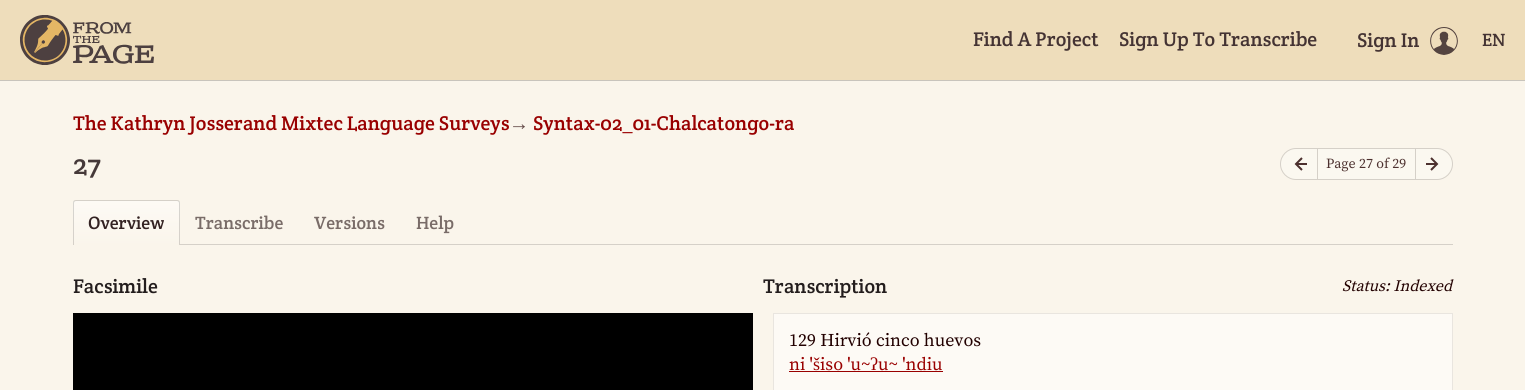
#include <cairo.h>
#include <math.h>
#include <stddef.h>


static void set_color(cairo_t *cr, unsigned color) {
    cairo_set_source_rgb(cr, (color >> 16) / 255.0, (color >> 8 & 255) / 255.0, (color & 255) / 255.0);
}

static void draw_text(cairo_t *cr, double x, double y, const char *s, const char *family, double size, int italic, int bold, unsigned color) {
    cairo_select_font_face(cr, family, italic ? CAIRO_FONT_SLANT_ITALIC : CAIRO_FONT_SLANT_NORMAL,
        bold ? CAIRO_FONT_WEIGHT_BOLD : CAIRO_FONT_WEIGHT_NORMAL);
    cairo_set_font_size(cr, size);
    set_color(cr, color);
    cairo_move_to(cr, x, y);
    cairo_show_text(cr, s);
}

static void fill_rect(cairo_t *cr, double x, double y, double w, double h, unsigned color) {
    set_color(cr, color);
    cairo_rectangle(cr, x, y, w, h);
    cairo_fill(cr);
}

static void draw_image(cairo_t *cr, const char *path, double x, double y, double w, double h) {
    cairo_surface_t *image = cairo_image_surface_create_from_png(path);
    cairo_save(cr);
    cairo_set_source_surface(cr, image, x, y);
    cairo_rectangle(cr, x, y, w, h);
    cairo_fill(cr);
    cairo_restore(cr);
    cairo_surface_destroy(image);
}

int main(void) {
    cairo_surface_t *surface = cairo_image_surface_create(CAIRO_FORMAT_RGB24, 1525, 390);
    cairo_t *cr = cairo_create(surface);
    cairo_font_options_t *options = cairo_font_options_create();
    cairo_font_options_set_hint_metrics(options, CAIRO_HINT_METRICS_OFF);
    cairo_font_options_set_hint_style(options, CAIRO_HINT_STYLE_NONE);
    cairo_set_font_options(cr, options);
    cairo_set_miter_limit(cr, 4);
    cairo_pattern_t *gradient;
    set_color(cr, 0xFAF5EB);
    cairo_paint(cr);
    fill_rect(cr, 0, 80, 1525, 1, 0xC8C4BC);
    fill_rect(cr, 0, 0, 1525, 80, 0xEEDDBB);
    draw_image(cr, "assets/img1.png", 20, 15, 134, 50);
    draw_text(cr, 973, 46, "Find A Project", "Crete Round", 20, 0, 0, 0x443333);
    draw_text(cr, 1119, 46, "Sign Up To Transcribe", "Crete Round", 20, 0, 0, 0x443333);
    draw_text(cr, 1357, 47, "Sign In", "Crete Round", 20, 0, 0, 0x443333);
    draw_image(cr, "assets/img2.png", 1430, 27, 28, 28);
    draw_text(cr, 1482, 46, "EN", "Crete Round", 18, 0, 0, 0x443333);
    draw_text(cr, 73, 130, "The Kathryn Josserand Mixtec Language Surveys", "Crete Round", 20, 0, 0, 0x990000);
    draw_text(cr, 509, 130, "→", "Liberation Serif", 20, 0, 0, 0x634A47);
    draw_text(cr, 533, 130, "Syntax-02_01-Chalcatongo-ra", "Crete Round", 20, 0, 0, 0x990000);
    draw_text(cr, 73, 174, "27", "Crete Round", 28, 0, 0, 0x453939);
    set_color(cr, 0xFBF8F0);
    cairo_new_path(cr);
    cairo_move_to(cr, 1296, 148.5);
    cairo_line_to(cr, 1317.5, 148.5);
    cairo_line_to(cr, 1317.5, 179.5);
    cairo_line_to(cr, 1296, 179.5);
    cairo_curve_to(cr, 1287.5, 179.5, 1280.5, 172.5, 1280.5, 164);
    cairo_curve_to(cr, 1280.5, 155.5, 1287.5, 148.5, 1296, 148.5);
    cairo_close_path(cr);
    cairo_fill_preserve(cr);
    set_color(cr, 0xD5D0C8);
    cairo_set_line_width(cr, 1);
    cairo_stroke(cr);
    draw_image(cr, "assets/img3.png", 1294, 157, 13, 14);
    fill_rect(cr, 1318, 149, 97, 30, 0xFBF8F0);
    fill_rect(cr, 1318, 148, 97, 1, 0xD5D0C8);
    fill_rect(cr, 1318, 179, 97, 1, 0xD5D0C8);
    draw_text(cr, 1326, 168, "Page 27 of 29", "Source Serif Pro", 14, 0, 0, 0x4D312F);
    set_color(cr, 0xFBF8F0);
    cairo_new_path(cr);
    cairo_move_to(cr, 1415.5, 148.5);
    cairo_line_to(cr, 1437, 148.5);
    cairo_curve_to(cr, 1445.5, 148.5, 1452.5, 155.5, 1452.5, 164);
    cairo_curve_to(cr, 1452.5, 172.5, 1445.5, 179.5, 1437, 179.5);
    cairo_line_to(cr, 1415.5, 179.5);
    cairo_close_path(cr);
    cairo_fill_preserve(cr);
    set_color(cr, 0xD5D0C8);
    cairo_stroke(cr);
    draw_image(cr, "assets/img4.png", 1426, 157, 13, 14);
    fill_rect(cr, 180, 244, 1273, 1, 0xD5D0C8);
    cairo_save(cr);
    cairo_new_path(cr);
    cairo_move_to(cr, 76, 200);
    cairo_line_to(cr, 177, 200);
    cairo_curve_to(cr, 178.5, 200, 180, 201.5, 180, 203);
    cairo_line_to(cr, 180, 245);
    cairo_line_to(cr, 73, 245);
    cairo_line_to(cr, 73, 203);
    cairo_curve_to(cr, 73, 201.5, 74.5, 200, 76, 200);
    cairo_close_path(cr);
    cairo_clip(cr);
    gradient = cairo_pattern_create_linear(127, 201, 127, 245);
    cairo_pattern_add_color_stop_rgba(gradient, 0, 0.992, 0.98, 0.961, 1);
    cairo_pattern_add_color_stop_rgba(gradient, 1, 0.98, 0.961, 0.922, 1);
    cairo_set_source(cr, gradient);
    cairo_pattern_destroy(gradient);
    cairo_rectangle(cr, 73, 201, 107, 44);
    cairo_fill(cr);
    cairo_restore(cr);
    cairo_set_source_rgba(cr, 0, 0, 0, 0.15);
    cairo_set_fill_rule(cr, CAIRO_FILL_RULE_EVEN_ODD);
    cairo_new_path(cr);
    cairo_move_to(cr, 76, 200);
    cairo_line_to(cr, 177, 200);
    cairo_curve_to(cr, 179, 200, 180, 201, 180, 203);
    cairo_line_to(cr, 180, 245);
    cairo_line_to(cr, 73, 245);
    cairo_line_to(cr, 73, 203);
    cairo_curve_to(cr, 73, 201, 74, 200, 76, 200);
    cairo_close_path(cr);
    cairo_move_to(cr, 76, 201);
    cairo_line_to(cr, 177, 201);
    cairo_curve_to(cr, 178, 201, 179, 202, 179, 203);
    cairo_line_to(cr, 179, 245);
    cairo_line_to(cr, 74, 245);
    cairo_line_to(cr, 74, 203);
    cairo_curve_to(cr, 74, 202, 75, 201, 76, 201);
    cairo_close_path(cr);
    cairo_fill(cr);
    draw_text(cr, 88, 229, "Overview", "Crete Round", 18, 0, 0, 0x332222);
    draw_text(cr, 195, 229, "Transcribe", "Crete Round", 18, 0, 0, 0x796C68);
    draw_text(cr, 314, 229, "Versions", "Crete Round", 18, 0, 0, 0x796C68);
    draw_text(cr, 416, 229, "Help", "Crete Round", 18, 0, 0, 0x796C68);
    draw_text(cr, 73, 293, "Facsimile", "Crete Round", 20, 0, 0, 0x231D1D);
    draw_text(cr, 763, 293, "Transcription", "Crete Round", 20, 0, 0, 0x231D1D);
    draw_text(cr, 1342, 291, "Status: Indexed", "Source Serif Pro", 16, 1, 0, 0x220000);
    fill_rect(cr, 73, 313, 680, 77, 0x000000);
    set_color(cr, 0xFDFAF5);
    cairo_rectangle(cr, 773.5, 313.5, 679, 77);
    cairo_fill_preserve(cr);
    set_color(cr, 0xE9E5DF);
    cairo_stroke(cr);
    draw_text(cr, 789, 346, "129 Hirvió cinco huevos", "Source Serif Pro", 18, 0, 0, 0x220000);
    draw_text(cr, 789, 370, "ni '", "Source Serif Pro", 18, 0, 0, 0x990000);
    draw_text(cr, 813, 370, "š", "Liberation Serif", 18, 0, 0, 0x990000);
    fill_rect(cr, 789, 371, 154, 1, 0x990000);
    draw_text(cr, 820, 370, "iso 'u~", "Source Serif Pro", 18, 0, 0, 0x990000);
    draw_text(cr, 870, 370, "ʔ", "Liberation Serif", 18, 0, 0, 0x990000);
    draw_text(cr, 878, 370, "u~ 'ndiu", "Source Serif Pro", 18, 0, 0, 0x990000);
    cairo_surface_write_to_png(surface, "output.png");
    cairo_font_options_destroy(options);
    cairo_destroy(cr);
    cairo_surface_destroy(surface);
    return 0;
}
